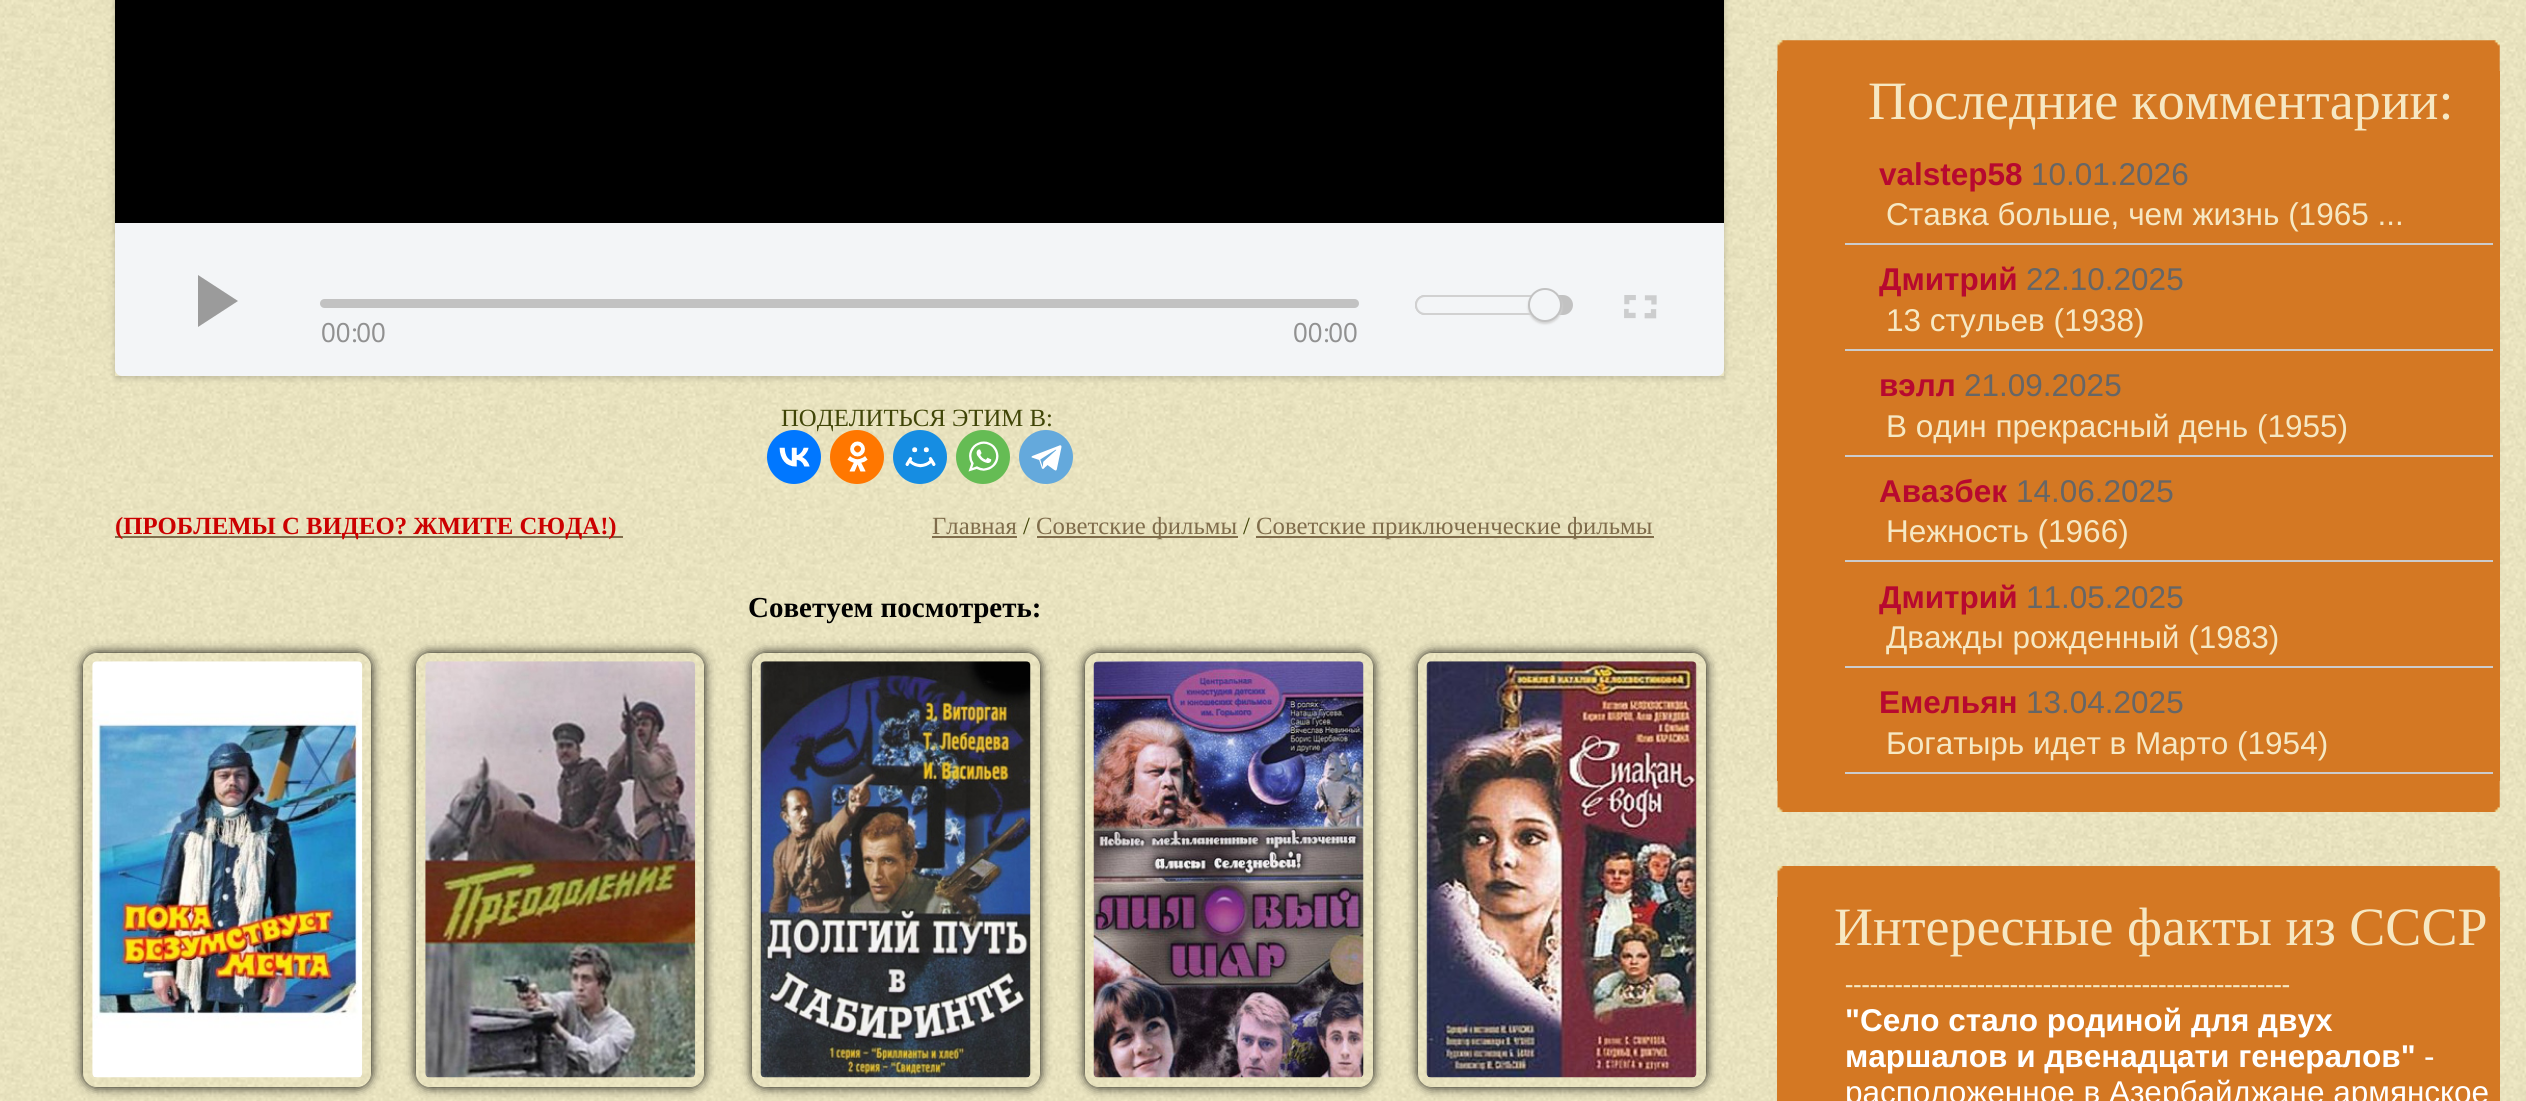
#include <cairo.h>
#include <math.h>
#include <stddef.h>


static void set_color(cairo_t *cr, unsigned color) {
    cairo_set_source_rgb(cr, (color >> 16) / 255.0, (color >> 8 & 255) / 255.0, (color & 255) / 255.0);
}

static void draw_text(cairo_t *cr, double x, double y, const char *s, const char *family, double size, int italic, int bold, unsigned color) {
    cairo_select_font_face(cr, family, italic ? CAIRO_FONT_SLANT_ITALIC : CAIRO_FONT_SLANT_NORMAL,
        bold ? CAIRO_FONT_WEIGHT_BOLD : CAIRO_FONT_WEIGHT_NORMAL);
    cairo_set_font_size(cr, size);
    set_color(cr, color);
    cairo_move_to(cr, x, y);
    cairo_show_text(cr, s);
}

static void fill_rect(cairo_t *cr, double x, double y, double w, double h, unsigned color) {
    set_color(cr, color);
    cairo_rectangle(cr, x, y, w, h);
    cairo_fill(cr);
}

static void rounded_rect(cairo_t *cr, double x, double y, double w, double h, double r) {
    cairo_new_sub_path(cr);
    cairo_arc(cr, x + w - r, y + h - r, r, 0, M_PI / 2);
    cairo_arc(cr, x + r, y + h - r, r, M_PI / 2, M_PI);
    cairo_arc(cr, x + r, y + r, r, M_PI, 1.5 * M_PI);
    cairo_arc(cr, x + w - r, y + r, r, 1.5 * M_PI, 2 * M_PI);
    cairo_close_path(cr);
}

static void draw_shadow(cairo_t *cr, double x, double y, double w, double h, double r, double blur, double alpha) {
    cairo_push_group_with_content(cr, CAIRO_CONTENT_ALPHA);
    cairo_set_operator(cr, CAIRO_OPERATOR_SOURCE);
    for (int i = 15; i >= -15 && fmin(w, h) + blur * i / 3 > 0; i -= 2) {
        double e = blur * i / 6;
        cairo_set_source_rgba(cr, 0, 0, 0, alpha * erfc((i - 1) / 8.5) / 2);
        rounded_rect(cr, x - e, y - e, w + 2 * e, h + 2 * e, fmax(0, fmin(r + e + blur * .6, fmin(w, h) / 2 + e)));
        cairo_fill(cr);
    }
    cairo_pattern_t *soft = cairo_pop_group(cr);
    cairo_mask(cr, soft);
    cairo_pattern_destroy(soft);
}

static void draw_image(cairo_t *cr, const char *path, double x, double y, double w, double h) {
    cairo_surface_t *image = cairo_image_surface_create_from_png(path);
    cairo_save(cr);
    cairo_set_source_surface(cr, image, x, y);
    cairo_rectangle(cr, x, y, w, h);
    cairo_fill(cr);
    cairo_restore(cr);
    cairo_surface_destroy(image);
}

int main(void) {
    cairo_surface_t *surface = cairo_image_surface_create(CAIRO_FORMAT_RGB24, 2526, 1101);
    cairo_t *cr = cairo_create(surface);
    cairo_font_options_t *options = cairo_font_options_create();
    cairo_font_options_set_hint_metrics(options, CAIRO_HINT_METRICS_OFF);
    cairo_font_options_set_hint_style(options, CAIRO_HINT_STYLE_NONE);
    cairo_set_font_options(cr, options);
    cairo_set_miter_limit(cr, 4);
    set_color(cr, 0xFFFFFF);
    cairo_paint(cr);
    draw_image(cr, "assets/img1.png", 0, 0, 2526, 1101);
    draw_image(cr, "assets/img2.png", 34, 0, 1721, 538);
    cairo_save(cr);
    cairo_set_fill_rule(cr, CAIRO_FILL_RULE_EVEN_ODD);
    cairo_new_path(cr);
    cairo_move_to(cr, 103, 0);
    cairo_line_to(cr, 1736, 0);
    cairo_line_to(cr, 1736, 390);
    cairo_line_to(cr, 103, 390);
    cairo_close_path(cr);
    cairo_move_to(cr, 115, -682);
    cairo_line_to(cr, 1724, -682);
    cairo_line_to(cr, 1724, 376);
    cairo_line_to(cr, 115, 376);
    cairo_close_path(cr);
    cairo_clip(cr);
    set_color(cr, 0x000000);
    draw_shadow(cr, 115, -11, 1609, 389, 0, 3.5, 0.2);
    cairo_restore(cr);
    fill_rect(cr, 115, 0, 1609, 223, 0x000000);
    set_color(cr, 0xF3F5F7);
    cairo_new_path(cr);
    cairo_move_to(cr, 115, 223);
    cairo_line_to(cr, 1724, 223);
    cairo_line_to(cr, 1724, 369);
    cairo_curve_to(cr, 1724, 373, 1721, 376, 1717, 376);
    cairo_line_to(cr, 122, 376);
    cairo_curve_to(cr, 118, 376, 115, 373, 115, 369);
    cairo_close_path(cr);
    cairo_fill(cr);
    set_color(cr, 0x9B9B9B);
    cairo_new_path(cr);
    cairo_move_to(cr, 198, 275);
    cairo_line_to(cr, 198, 327);
    cairo_line_to(cr, 238, 301);
    cairo_close_path(cr);
    cairo_fill(cr);
    set_color(cr, 0xC2C2C2);
    rounded_rect(cr, 1415, 295, 158, 20, 10);
    cairo_fill(cr);
    set_color(cr, 0xF3F5F7);
    rounded_rect(cr, 1416, 296, 129, 18, 9);
    cairo_fill_preserve(cr);
    set_color(cr, 0xD1D1D1);
    cairo_stroke(cr);
    set_color(cr, 0xD4D4D4);
    draw_shadow(cr, 1528, 290, 34, 34, 17, 1, 1);
    set_color(cr, 0xF3F5F7);
    cairo_arc(cr, 1545, 305, 16, 0, 2 * M_PI);
    cairo_fill_preserve(cr);
    set_color(cr, 0xC2C2C2);
    cairo_stroke(cr);
    draw_image(cr, "assets/img3.png", 1624, 295, 33, 24);
    rounded_rect(cr, 320, 299, 1039, 9, 4.5);
    cairo_fill(cr);
    draw_text(cr, 321, 342, "00:00", "PT Sans", 27, 0, 0, 0x919191);
    draw_text(cr, 1293, 342, "00:00", "PT Sans", 27, 0, 0, 0x919191);
    draw_text(cr, 781, 426, "ПОДЕЛИТЬСЯ ЭТИМ В:", "Liberation Serif", 24.75, 0, 0, 0x404507);
    set_color(cr, 0x0077FF);
    cairo_new_path(cr);
    cairo_arc(cr, 794, 457, 27, 0, 2 * M_PI);
    cairo_fill(cr);
    draw_image(cr, "assets/img4.png", 779, 447, 31, 20);
    set_color(cr, 0xFF7700);
    cairo_arc(cr, 857, 457, 27, 0, 2 * M_PI);
    cairo_fill(cr);
    draw_image(cr, "assets/img5.png", 847, 441, 21, 31);
    set_color(cr, 0x168DE2);
    cairo_arc(cr, 920, 457, 27, 0, 2 * M_PI);
    cairo_fill(cr);
    draw_image(cr, "assets/img6.png", 905, 447, 31, 21);
    set_color(cr, 0x65BC54);
    cairo_arc(cr, 983, 457, 27, 0, 2 * M_PI);
    cairo_fill(cr);
    draw_image(cr, "assets/img7.png", 968, 441, 31, 31);
    set_color(cr, 0x64A9DC);
    cairo_arc(cr, 1046, 457, 27, 0, 2 * M_PI);
    cairo_fill(cr);
    draw_image(cr, "assets/img8.png", 1031, 445, 31, 26);
    fill_rect(cr, 115, 536, 508, 2, 0x7F6C4B);
    draw_text(cr, 115, 534, "(ПРОБЛЕМЫ С ВИДЕО? ЖМИТЕ СЮДА!)", "Liberation Serif", 24.75, 0, 1, 0xCC0000);
    draw_text(cr, 932, 534, "Главная", "Liberation Serif", 24.75, 0, 0, 0x7F6C4B);
    fill_rect(cr, 932, 536, 85, 2, 0x7F6C4B);
    draw_text(cr, 1023, 534, "/", "Liberation Serif", 24.75, 0, 0, 0x404507);
    fill_rect(cr, 1037, 536, 201, 2, 0x7F6C4B);
    draw_text(cr, 1036, 534, "Советские фильмы", "Liberation Serif", 24.75, 0, 0, 0x7F6C4B);
    draw_text(cr, 1243, 534, "/", "Liberation Serif", 24.75, 0, 0, 0x404507);
    fill_rect(cr, 1256, 536, 398, 2, 0x7F6C4B);
    draw_text(cr, 1256, 534, "Советские приключенческие фильмы", "Liberation Serif", 24.75, 0, 0, 0x7F6C4B);
    draw_text(cr, 748, 617, "Советуем посмотреть:", "Liberation Serif", 29, 0, 1, 0x000000);
    cairo_save(cr);
    cairo_set_fill_rule(cr, CAIRO_FILL_RULE_EVEN_ODD);
    cairo_new_path(cr);
    cairo_move_to(cr, 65, 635);
    cairo_line_to(cr, 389, 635);
    cairo_line_to(cr, 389, 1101);
    cairo_line_to(cr, 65, 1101);
    cairo_close_path(cr);
    cairo_move_to(cr, 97, 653);
    cairo_line_to(cr, 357, 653);
    cairo_curve_to(cr, 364.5, 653, 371, 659.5, 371, 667);
    cairo_line_to(cr, 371, 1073);
    cairo_curve_to(cr, 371, 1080.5, 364.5, 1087, 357, 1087);
    cairo_line_to(cr, 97, 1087);
    cairo_curve_to(cr, 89.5, 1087, 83, 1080.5, 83, 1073);
    cairo_line_to(cr, 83, 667);
    cairo_curve_to(cr, 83, 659.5, 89.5, 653, 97, 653);
    cairo_close_path(cr);
    cairo_clip(cr);
    set_color(cr, 0x000000);
    draw_shadow(cr, 83, 653, 288, 434, 14, 5.5, 1);
    cairo_restore(cr);
    draw_image(cr, "assets/img9.png", 92, 661, 271, 417);
    cairo_save(cr);
    cairo_set_fill_rule(cr, CAIRO_FILL_RULE_EVEN_ODD);
    cairo_new_path(cr);
    cairo_move_to(cr, 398, 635);
    cairo_line_to(cr, 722, 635);
    cairo_line_to(cr, 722, 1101);
    cairo_line_to(cr, 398, 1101);
    cairo_close_path(cr);
    cairo_move_to(cr, 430, 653);
    cairo_line_to(cr, 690, 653);
    cairo_curve_to(cr, 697.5, 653, 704, 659.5, 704, 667);
    cairo_line_to(cr, 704, 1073);
    cairo_curve_to(cr, 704, 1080.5, 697.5, 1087, 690, 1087);
    cairo_line_to(cr, 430, 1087);
    cairo_curve_to(cr, 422.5, 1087, 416, 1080.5, 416, 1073);
    cairo_line_to(cr, 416, 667);
    cairo_curve_to(cr, 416, 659.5, 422.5, 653, 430, 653);
    cairo_close_path(cr);
    cairo_clip(cr);
    set_color(cr, 0x000000);
    draw_shadow(cr, 416, 653, 288, 434, 14, 5.5, 1);
    cairo_restore(cr);
    draw_image(cr, "assets/img10.png", 425, 661, 271, 417);
    cairo_save(cr);
    cairo_set_fill_rule(cr, CAIRO_FILL_RULE_EVEN_ODD);
    cairo_new_path(cr);
    cairo_move_to(cr, 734, 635);
    cairo_line_to(cr, 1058, 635);
    cairo_line_to(cr, 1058, 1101);
    cairo_line_to(cr, 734, 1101);
    cairo_close_path(cr);
    cairo_move_to(cr, 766, 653);
    cairo_line_to(cr, 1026, 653);
    cairo_curve_to(cr, 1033.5, 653, 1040, 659.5, 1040, 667);
    cairo_line_to(cr, 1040, 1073);
    cairo_curve_to(cr, 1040, 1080.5, 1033.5, 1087, 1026, 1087);
    cairo_line_to(cr, 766, 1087);
    cairo_curve_to(cr, 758.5, 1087, 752, 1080.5, 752, 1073);
    cairo_line_to(cr, 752, 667);
    cairo_curve_to(cr, 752, 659.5, 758.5, 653, 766, 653);
    cairo_close_path(cr);
    cairo_clip(cr);
    set_color(cr, 0x000000);
    draw_shadow(cr, 752, 653, 288, 434, 14, 5.5, 1);
    cairo_restore(cr);
    draw_image(cr, "assets/img11.png", 760, 661, 271, 417);
    cairo_save(cr);
    cairo_set_fill_rule(cr, CAIRO_FILL_RULE_EVEN_ODD);
    cairo_new_path(cr);
    cairo_move_to(cr, 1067, 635);
    cairo_line_to(cr, 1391, 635);
    cairo_line_to(cr, 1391, 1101);
    cairo_line_to(cr, 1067, 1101);
    cairo_close_path(cr);
    cairo_move_to(cr, 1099, 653);
    cairo_line_to(cr, 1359, 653);
    cairo_curve_to(cr, 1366.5, 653, 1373, 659.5, 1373, 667);
    cairo_line_to(cr, 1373, 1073);
    cairo_curve_to(cr, 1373, 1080.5, 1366.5, 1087, 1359, 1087);
    cairo_line_to(cr, 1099, 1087);
    cairo_curve_to(cr, 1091.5, 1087, 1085, 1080.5, 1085, 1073);
    cairo_line_to(cr, 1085, 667);
    cairo_curve_to(cr, 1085, 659.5, 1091.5, 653, 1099, 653);
    cairo_close_path(cr);
    cairo_clip(cr);
    set_color(cr, 0x000000);
    draw_shadow(cr, 1085, 653, 288, 434, 14, 5.5, 1);
    cairo_restore(cr);
    draw_image(cr, "assets/img12.png", 1093, 661, 271, 417);
    cairo_save(cr);
    cairo_set_fill_rule(cr, CAIRO_FILL_RULE_EVEN_ODD);
    cairo_new_path(cr);
    cairo_move_to(cr, 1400, 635);
    cairo_line_to(cr, 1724, 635);
    cairo_line_to(cr, 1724, 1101);
    cairo_line_to(cr, 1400, 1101);
    cairo_close_path(cr);
    cairo_move_to(cr, 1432, 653);
    cairo_line_to(cr, 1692, 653);
    cairo_curve_to(cr, 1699.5, 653, 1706, 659.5, 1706, 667);
    cairo_line_to(cr, 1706, 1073);
    cairo_curve_to(cr, 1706, 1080.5, 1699.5, 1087, 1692, 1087);
    cairo_line_to(cr, 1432, 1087);
    cairo_curve_to(cr, 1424.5, 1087, 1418, 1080.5, 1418, 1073);
    cairo_line_to(cr, 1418, 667);
    cairo_curve_to(cr, 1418, 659.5, 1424.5, 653, 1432, 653);
    cairo_close_path(cr);
    cairo_clip(cr);
    set_color(cr, 0x000000);
    draw_shadow(cr, 1418, 653, 288, 434, 14, 5.5, 1);
    cairo_restore(cr);
    draw_image(cr, "assets/img13.png", 1426, 661, 271, 417);
    draw_image(cr, "assets/img14.png", 1777, 40, 723, 31);
    fill_rect(cr, 1777, 71, 723, 710, 0xD47823);
    draw_text(cr, 1868, 119, "Последние комментарии:", "Liberation Serif", 54, 0, 0, 0xF6E8C3);
    fill_rect(cr, 1845, 243, 648, 2, 0xCCCCCC);
    draw_text(cr, 1879, 185, "valstep58", "Liberation Sans", 31.5, 0, 1, 0xB7092F);
    draw_text(cr, 2031, 185, "10.01.2026", "Liberation Sans", 31.5, 0, 0, 0x666666);
    draw_text(cr, 1886, 225, "Ставка больше, чем жизнь (1965 ...", "Liberation Sans", 31.5, 0, 0, 0xF6E8C3);
    fill_rect(cr, 1845, 349, 648, 2, 0xCCCCCC);
    draw_text(cr, 1879, 290, "Дмитрий", "Liberation Sans", 31.5, 0, 1, 0xB7092F);
    draw_text(cr, 2026, 290, "22.10.2025", "Liberation Sans", 31.5, 0, 0, 0x666666);
    draw_text(cr, 1886, 331, "13 стульев (1938)", "Liberation Sans", 31.5, 0, 0, 0xF6E8C3);
    fill_rect(cr, 1845, 455, 648, 2, 0xCCCCCC);
    draw_text(cr, 1879, 396, "вэлл", "Liberation Sans", 31.5, 0, 1, 0xB7092F);
    draw_text(cr, 1964, 396, "21.09.2025", "Liberation Sans", 31.5, 0, 0, 0x666666);
    draw_text(cr, 1886, 437, "В один прекрасный день (1955)", "Liberation Sans", 31.5, 0, 0, 0xF6E8C3);
    fill_rect(cr, 1845, 560, 648, 2, 0xCCCCCC);
    draw_text(cr, 1879, 502, "Авазбек", "Liberation Sans", 31.5, 0, 1, 0xB7092F);
    draw_text(cr, 2016, 502, "14.06.2025", "Liberation Sans", 31.5, 0, 0, 0x666666);
    draw_text(cr, 1886, 542, "Нежность (1966)", "Liberation Sans", 31.5, 0, 0, 0xF6E8C3);
    fill_rect(cr, 1845, 666, 648, 2, 0xCCCCCC);
    draw_text(cr, 1879, 608, "Дмитрий", "Liberation Sans", 31.5, 0, 1, 0xB7092F);
    draw_text(cr, 2026, 608, "11.05.2025", "Liberation Sans", 31.5, 0, 0, 0x666666);
    draw_text(cr, 1886, 648, "Дважды рожденный (1983)", "Liberation Sans", 31.5, 0, 0, 0xF6E8C3);
    fill_rect(cr, 1845, 772, 648, 2, 0xCCCCCC);
    draw_text(cr, 1879, 713, "Емельян", "Liberation Sans", 31.5, 0, 1, 0xB7092F);
    draw_text(cr, 2026, 713, "13.04.2025", "Liberation Sans", 31.5, 0, 0, 0x666666);
    draw_text(cr, 1886, 754, "Богатырь идет в Марто (1954)", "Liberation Sans", 31.5, 0, 0, 0xF6E8C3);
    draw_image(cr, "assets/img15.png", 1777, 781, 723, 31);
    draw_image(cr, "assets/img16.png", 1777, 866, 723, 31);
    fill_rect(cr, 1777, 897, 723, 204, 0xD47823);
    draw_text(cr, 1834, 945, "Интересные факты из СССР", "Liberation Serif", 54, 0, 0, 0xF6E8C3);
    draw_text(cr, 1845, 992, "------------------------------------------------------", "Liberation Serif", 24.75, 0, 1, 0xF6E8C3);
    draw_text(cr, 1845, 1031, "\"Село стало родиной для двух", "Liberation Sans", 31.5, 0, 1, 0xFFFFFF);
    draw_text(cr, 1845, 1067, "маршалов и двенадцати генералов\"", "Liberation Sans", 31.5, 0, 1, 0xFFFFFF);
    draw_text(cr, 2424, 1067, "-", "Liberation Sans", 31.5, 0, 0, 0xFFFFFF);
    draw_text(cr, 1845, 1103, "расположенное в Азербайджане армянское", "Liberation Sans", 31.5, 0, 0, 0xFFFFFF);
    cairo_surface_write_to_png(surface, "output.png");
    cairo_font_options_destroy(options);
    cairo_destroy(cr);
    cairo_surface_destroy(surface);
    return 0;
}
